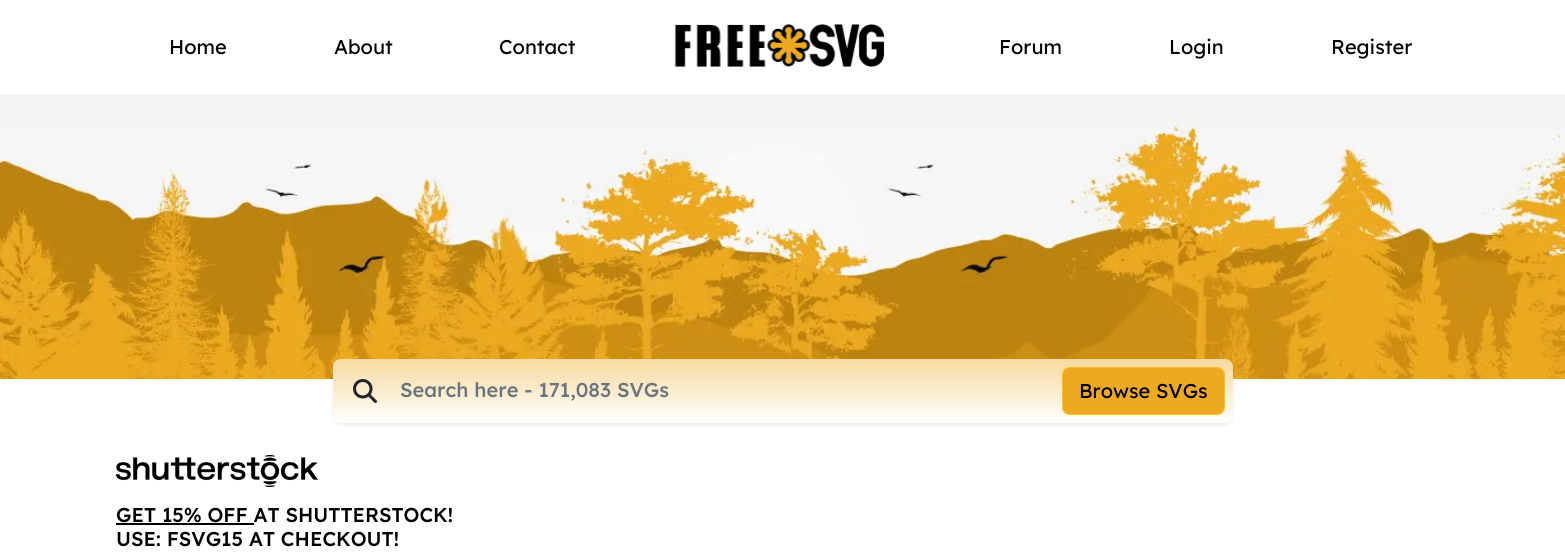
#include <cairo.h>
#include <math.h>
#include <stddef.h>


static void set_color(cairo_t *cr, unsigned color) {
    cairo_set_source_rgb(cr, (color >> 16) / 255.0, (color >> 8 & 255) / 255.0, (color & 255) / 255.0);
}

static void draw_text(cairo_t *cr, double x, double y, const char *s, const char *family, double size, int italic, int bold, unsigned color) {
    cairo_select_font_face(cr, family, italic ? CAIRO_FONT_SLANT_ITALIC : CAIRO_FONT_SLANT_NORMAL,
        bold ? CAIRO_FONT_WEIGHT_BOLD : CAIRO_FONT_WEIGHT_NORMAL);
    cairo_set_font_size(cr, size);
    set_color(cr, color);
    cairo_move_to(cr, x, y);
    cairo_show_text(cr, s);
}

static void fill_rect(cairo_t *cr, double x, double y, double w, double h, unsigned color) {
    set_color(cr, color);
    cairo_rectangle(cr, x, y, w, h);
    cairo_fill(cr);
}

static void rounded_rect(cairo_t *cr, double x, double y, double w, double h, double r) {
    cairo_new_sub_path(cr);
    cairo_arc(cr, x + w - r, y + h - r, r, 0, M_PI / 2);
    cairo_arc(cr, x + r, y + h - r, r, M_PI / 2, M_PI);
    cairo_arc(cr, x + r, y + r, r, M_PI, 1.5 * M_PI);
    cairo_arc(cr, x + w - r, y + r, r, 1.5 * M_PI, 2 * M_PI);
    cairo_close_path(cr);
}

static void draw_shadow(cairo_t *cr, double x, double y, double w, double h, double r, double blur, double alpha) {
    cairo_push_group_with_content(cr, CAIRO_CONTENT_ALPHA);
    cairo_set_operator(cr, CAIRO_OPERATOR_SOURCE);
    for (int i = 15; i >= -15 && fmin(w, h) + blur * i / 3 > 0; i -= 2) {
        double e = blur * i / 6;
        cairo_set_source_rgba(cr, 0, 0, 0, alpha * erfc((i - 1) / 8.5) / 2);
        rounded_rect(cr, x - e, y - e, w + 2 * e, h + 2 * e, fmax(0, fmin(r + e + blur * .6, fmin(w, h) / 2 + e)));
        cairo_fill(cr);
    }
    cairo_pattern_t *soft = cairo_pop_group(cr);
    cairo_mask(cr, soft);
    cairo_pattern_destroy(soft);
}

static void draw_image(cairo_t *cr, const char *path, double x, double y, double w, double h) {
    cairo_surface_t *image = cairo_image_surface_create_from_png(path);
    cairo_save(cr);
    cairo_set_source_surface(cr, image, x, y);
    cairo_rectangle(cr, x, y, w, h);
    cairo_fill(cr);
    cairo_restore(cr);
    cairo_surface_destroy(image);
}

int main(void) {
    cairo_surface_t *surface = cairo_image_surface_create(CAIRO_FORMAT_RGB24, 1565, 560);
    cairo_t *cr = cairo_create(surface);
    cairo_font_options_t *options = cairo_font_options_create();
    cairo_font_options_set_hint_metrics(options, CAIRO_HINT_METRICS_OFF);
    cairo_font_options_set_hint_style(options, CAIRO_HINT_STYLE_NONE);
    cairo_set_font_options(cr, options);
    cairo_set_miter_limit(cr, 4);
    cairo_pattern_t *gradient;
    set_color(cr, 0xFFFFFF);
    cairo_paint(cr);
    draw_text(cr, 169, 54, "Home", "Lexend", 20, 0, 0, 0x000000);
    draw_text(cr, 334, 54, "About", "Lexend", 20, 0, 0, 0x000000);
    draw_text(cr, 499, 54, "Contact", "Lexend", 20, 0, 0, 0x000000);
    draw_image(cr, "assets/img1.png", 674, 24, 210, 43);
    draw_text(cr, 999, 54, "Forum", "Lexend", 20, 0, 0, 0x000000);
    draw_text(cr, 1169, 54, "Login", "Lexend", 20, 0, 0, 0x000000);
    draw_text(cr, 1331, 54, "Register", "Lexend", 20, 0, 0, 0x000000);
    draw_image(cr, "assets/img2.png", 0, 94, 1565, 285);
    set_color(cr, 0x000000);
    draw_shadow(cr, 333, 361, 900, 64, 8, 2, 0.07);
    gradient = cairo_pattern_create_linear(783, 423, 783, 276);
    cairo_pattern_add_color_stop_rgba(gradient, 0, 1, 1, 1, 1);
    cairo_pattern_add_color_stop_rgba(gradient, 1, 0.929, 0.663, 0.133, 1);
    cairo_set_source(cr, gradient);
    cairo_pattern_destroy(gradient);
    rounded_rect(cr, 333, 359, 900, 64, 8);
    cairo_fill(cr);
    draw_image(cr, "assets/img3.png", 353, 379, 24, 24);
    draw_text(cr, 400, 397, "Search here - 171,083 SVGs", "Lexend Medium", 20, 0, 0, 0x6C757D);
    set_color(cr, 0xEDA922);
    rounded_rect(cr, 1062.5, 367.5, 162, 47, 7.5);
    cairo_fill_preserve(cr);
    set_color(cr, 0xFFC107);
    cairo_set_line_width(cr, 1);
    cairo_stroke(cr);
    draw_text(cr, 1079, 398, "Browse SVGs", "Lexend", 20, 0, 0, 0x000000);
    draw_image(cr, "assets/img4.png", 116, 455, 202, 32);
    draw_text(cr, 116, 522, "GET 15% OFF AT SHUTTERSTOCK!", "Lexend Medium", 20, 0, 0, 0x000000);
    fill_rect(cr, 116, 523, 138, 2, 0x000000);
    draw_text(cr, 116, 546, "USE: FSVG15 AT CHECKOUT!", "Lexend Medium", 20, 0, 0, 0x000000);
    cairo_surface_write_to_png(surface, "output.png");
    cairo_font_options_destroy(options);
    cairo_destroy(cr);
    cairo_surface_destroy(surface);
    return 0;
}
